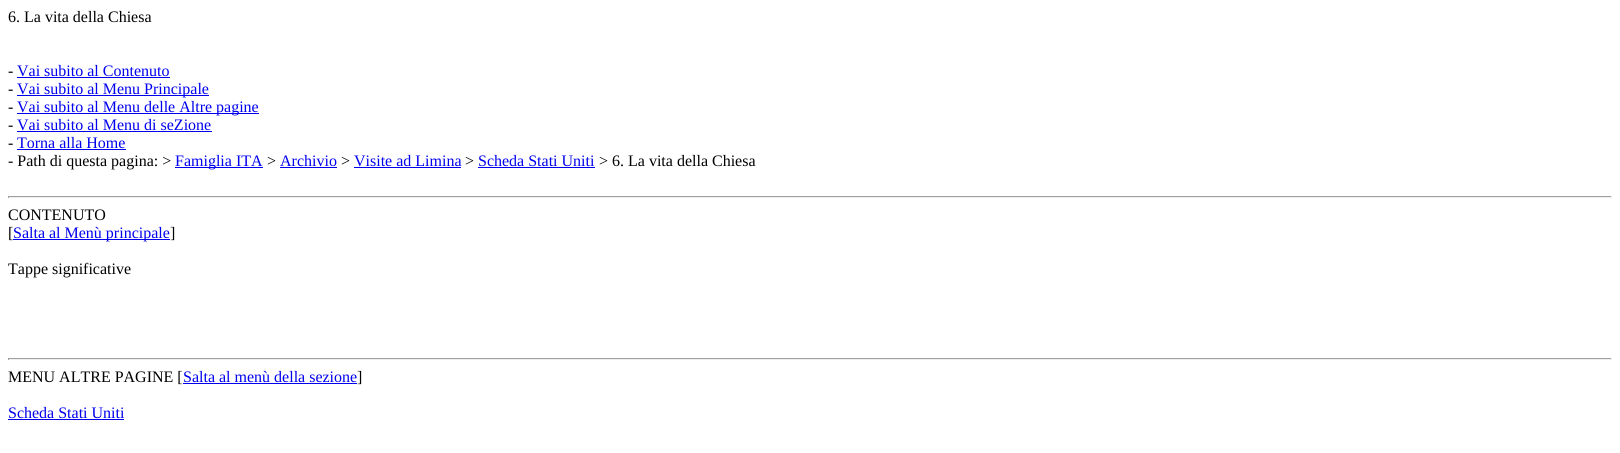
#include <cairo.h>
#include <math.h>
#include <stddef.h>


static void set_color(cairo_t *cr, unsigned color) {
    cairo_set_source_rgb(cr, (color >> 16) / 255.0, (color >> 8 & 255) / 255.0, (color & 255) / 255.0);
}

static void draw_text(cairo_t *cr, double x, double y, const char *s, const char *family, double size, int italic, int bold, unsigned color) {
    cairo_select_font_face(cr, family, italic ? CAIRO_FONT_SLANT_ITALIC : CAIRO_FONT_SLANT_NORMAL,
        bold ? CAIRO_FONT_WEIGHT_BOLD : CAIRO_FONT_WEIGHT_NORMAL);
    cairo_set_font_size(cr, size);
    set_color(cr, color);
    cairo_move_to(cr, x, y);
    cairo_show_text(cr, s);
}

static void fill_rect(cairo_t *cr, double x, double y, double w, double h, unsigned color) {
    set_color(cr, color);
    cairo_rectangle(cr, x, y, w, h);
    cairo_fill(cr);
}

int main(void) {
    cairo_surface_t *surface = cairo_image_surface_create(CAIRO_FORMAT_RGB24, 1620, 453);
    cairo_t *cr = cairo_create(surface);
    cairo_font_options_t *options = cairo_font_options_create();
    cairo_font_options_set_hint_metrics(options, CAIRO_HINT_METRICS_OFF);
    cairo_font_options_set_hint_style(options, CAIRO_HINT_STYLE_NONE);
    cairo_set_font_options(cr, options);
    cairo_set_miter_limit(cr, 4);
    set_color(cr, 0xFFFFFF);
    cairo_paint(cr);
    draw_text(cr, 8, 22, "6. La vita della Chiesa", "Liberation Serif", 16, 0, 0, 0x000000);
    draw_text(cr, 8, 76, "-", "Liberation Serif", 16, 0, 0, 0x000000);
    draw_text(cr, 17, 76, "Vai subito al Contenuto", "Liberation Serif", 16, 0, 0, 0x0000EE);
    fill_rect(cr, 17, 77, 153, 1, 0x0000EE);
    draw_text(cr, 8, 94, "-", "Liberation Serif", 16, 0, 0, 0x000000);
    fill_rect(cr, 17, 95, 192, 1, 0x0000EE);
    draw_text(cr, 17, 94, "Vai subito al Menu Principale", "Liberation Serif", 16, 0, 0, 0x0000EE);
    draw_text(cr, 8, 112, "-", "Liberation Serif", 16, 0, 0, 0x000000);
    fill_rect(cr, 17, 113, 242, 1, 0x0000EE);
    draw_text(cr, 17, 112, "Vai subito al Menu delle Altre pagine", "Liberation Serif", 16, 0, 0, 0x0000EE);
    draw_text(cr, 8, 130, "-", "Liberation Serif", 16, 0, 0, 0x000000);
    draw_text(cr, 17, 130, "Vai subito al Menu di seZione", "Liberation Serif", 16, 0, 0, 0x0000EE);
    fill_rect(cr, 17, 131, 195, 1, 0x0000EE);
    draw_text(cr, 8, 148, "-", "Liberation Serif", 16, 0, 0, 0x000000);
    draw_text(cr, 17, 148, "Torna alla Home", "Liberation Serif", 16, 0, 0, 0x0000EE);
    fill_rect(cr, 17, 149, 109, 1, 0x0000EE);
    draw_text(cr, 8, 166, "- Path di questa pagina: >", "Liberation Serif", 16, 0, 0, 0x000000);
    fill_rect(cr, 175, 167, 88, 1, 0x0000EE);
    draw_text(cr, 175, 166, "Famiglia ITA", "Liberation Serif", 16, 0, 0, 0x0000EE);
    draw_text(cr, 267, 166, ">", "Liberation Serif", 16, 0, 0, 0x000000);
    draw_text(cr, 280, 166, "Archivio", "Liberation Serif", 16, 0, 0, 0x0000EE);
    fill_rect(cr, 280, 167, 57, 1, 0x0000EE);
    draw_text(cr, 341, 166, ">", "Liberation Serif", 16, 0, 0, 0x000000);
    draw_text(cr, 354, 166, "Visite ad Limina", "Liberation Serif", 16, 0, 0, 0x0000EE);
    fill_rect(cr, 354, 167, 107, 1, 0x0000EE);
    draw_text(cr, 465, 166, ">", "Liberation Serif", 16, 0, 0, 0x000000);
    draw_text(cr, 478, 166, "Scheda Stati Uniti", "Liberation Serif", 16, 0, 0, 0x0000EE);
    fill_rect(cr, 478, 167, 117, 1, 0x0000EE);
    draw_text(cr, 599, 166, "> 6. La vita della Chiesa", "Liberation Serif", 16, 0, 0, 0x000000);
    fill_rect(cr, 8, 196, 1604, 1, 0x9F9F9F);
    fill_rect(cr, 1611, 196, 1, 2, 0xEEEEEE);
    fill_rect(cr, 8, 197, 1604, 1, 0xEEEEEE);
    fill_rect(cr, 8, 196, 1, 2, 0x9F9F9F);
    draw_text(cr, 8, 220, "CONTENUTO", "Liberation Serif", 16, 0, 0, 0x000000);
    draw_text(cr, 8, 238, "[", "Liberation Serif", 16, 0, 0, 0x000000);
    fill_rect(cr, 13, 239, 157, 1, 0x0000EE);
    draw_text(cr, 13, 238, "Salta al Menù principale", "Liberation Serif", 16, 0, 0, 0x0000EE);
    draw_text(cr, 170, 238, "]", "Liberation Serif", 16, 0, 0, 0x000000);
    draw_text(cr, 8, 274, "Tappe significative", "Liberation Serif", 16, 0, 0, 0x000000);
    fill_rect(cr, 8, 358, 1604, 1, 0x9F9F9F);
    fill_rect(cr, 1611, 358, 1, 2, 0xEEEEEE);
    fill_rect(cr, 8, 359, 1604, 1, 0xEEEEEE);
    fill_rect(cr, 8, 358, 1, 2, 0x9F9F9F);
    draw_text(cr, 8, 382, "MENU ALTRE PAGINE [", "Liberation Serif", 16, 0, 0, 0x000000);
    draw_text(cr, 183, 382, "Salta al menù della sezione", "Liberation Serif", 16, 0, 0, 0x0000EE);
    fill_rect(cr, 183, 383, 174, 1, 0x0000EE);
    draw_text(cr, 357, 382, "]", "Liberation Serif", 16, 0, 0, 0x000000);
    draw_text(cr, 8, 418, "Scheda Stati Uniti", "Liberation Serif", 16, 0, 0, 0x0000EE);
    fill_rect(cr, 8, 419, 116, 1, 0x0000EE);
    cairo_surface_write_to_png(surface, "output.png");
    cairo_font_options_destroy(options);
    cairo_destroy(cr);
    cairo_surface_destroy(surface);
    return 0;
}
